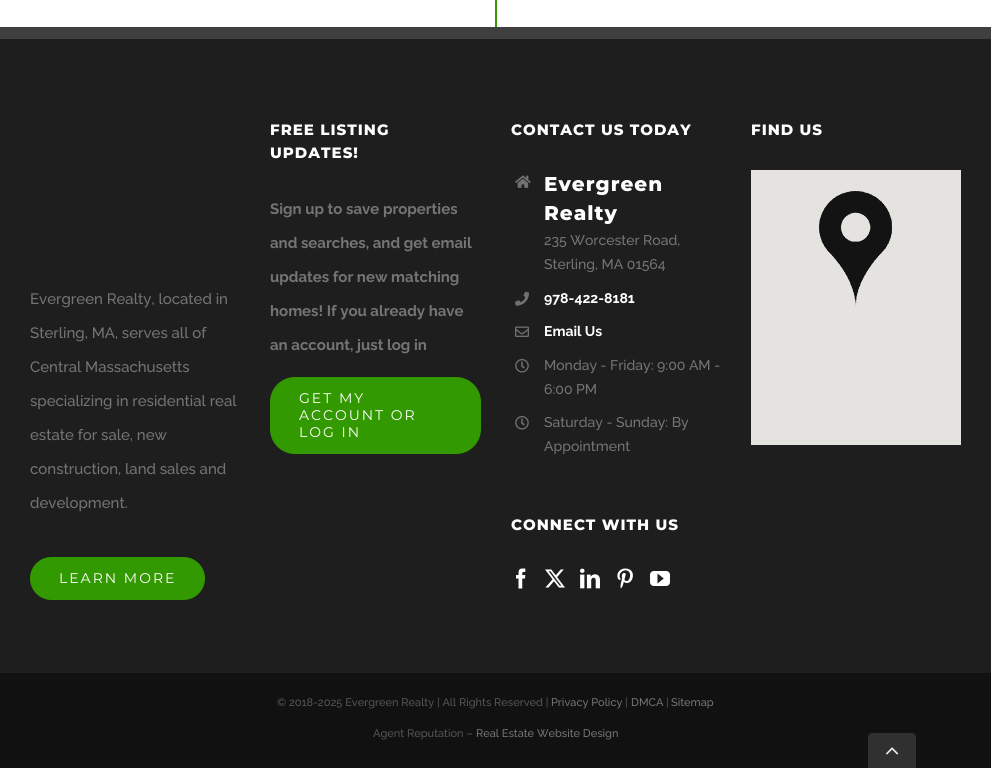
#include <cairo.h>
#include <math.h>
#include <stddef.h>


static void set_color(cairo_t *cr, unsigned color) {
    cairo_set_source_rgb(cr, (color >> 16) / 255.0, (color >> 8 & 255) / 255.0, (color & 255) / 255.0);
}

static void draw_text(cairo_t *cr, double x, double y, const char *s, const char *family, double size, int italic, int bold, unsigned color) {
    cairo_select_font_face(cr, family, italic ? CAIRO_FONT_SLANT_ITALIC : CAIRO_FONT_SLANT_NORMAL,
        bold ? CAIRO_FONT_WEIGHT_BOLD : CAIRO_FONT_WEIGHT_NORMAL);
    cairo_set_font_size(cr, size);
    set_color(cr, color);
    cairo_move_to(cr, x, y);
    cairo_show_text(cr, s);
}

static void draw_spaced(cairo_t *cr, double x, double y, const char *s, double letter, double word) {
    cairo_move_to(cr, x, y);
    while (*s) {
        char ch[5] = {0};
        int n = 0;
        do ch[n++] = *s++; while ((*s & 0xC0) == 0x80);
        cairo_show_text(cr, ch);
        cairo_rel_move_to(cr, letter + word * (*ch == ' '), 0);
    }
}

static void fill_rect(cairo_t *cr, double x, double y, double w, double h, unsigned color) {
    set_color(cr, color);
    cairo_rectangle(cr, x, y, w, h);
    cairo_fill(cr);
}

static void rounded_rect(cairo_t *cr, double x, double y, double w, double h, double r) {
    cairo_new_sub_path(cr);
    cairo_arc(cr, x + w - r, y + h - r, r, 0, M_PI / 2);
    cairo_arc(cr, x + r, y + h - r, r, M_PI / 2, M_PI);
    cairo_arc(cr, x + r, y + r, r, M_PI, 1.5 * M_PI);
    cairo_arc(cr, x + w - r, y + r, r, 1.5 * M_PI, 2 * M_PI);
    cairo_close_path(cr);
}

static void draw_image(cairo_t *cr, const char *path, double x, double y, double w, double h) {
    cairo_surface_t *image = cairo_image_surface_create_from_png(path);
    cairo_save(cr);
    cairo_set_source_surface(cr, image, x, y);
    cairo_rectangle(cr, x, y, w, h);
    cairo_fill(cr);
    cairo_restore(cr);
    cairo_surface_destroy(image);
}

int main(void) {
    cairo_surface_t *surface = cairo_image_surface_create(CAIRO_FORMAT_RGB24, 991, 768);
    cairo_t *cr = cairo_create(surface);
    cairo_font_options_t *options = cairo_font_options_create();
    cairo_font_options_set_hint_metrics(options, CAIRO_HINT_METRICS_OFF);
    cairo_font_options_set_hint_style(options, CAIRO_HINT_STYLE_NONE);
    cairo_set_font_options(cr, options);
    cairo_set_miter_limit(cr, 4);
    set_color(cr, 0xFFFFFF);
    cairo_paint(cr);
    fill_rect(cr, 495, 0, 2, 27, 0x339900);
    fill_rect(cr, 0, 39, 991, 634, 0x1E1E1E);
    fill_rect(cr, 0, 27, 991, 12, 0x3F3F3F);
    cairo_select_font_face(cr, "Montserrat ExtraBold", CAIRO_FONT_SLANT_NORMAL, CAIRO_FONT_WEIGHT_NORMAL);
    cairo_set_font_size(cr, 15);
    set_color(cr, 0xFFFFFF);
    draw_spaced(cr, 270, 135, "FREE LISTING", 1, 0);
    draw_spaced(cr, 270, 158, "UPDATES!", 1, 0);
    draw_text(cr, 270, 214, "Sign up to save properties", "Raleway", 15, 0, 1, 0x747474);
    draw_text(cr, 270, 248, "and searches, and get email", "Raleway", 15, 0, 1, 0x747474);
    draw_text(cr, 270, 282, "updates for new matching", "Raleway", 15, 0, 1, 0x747474);
    draw_text(cr, 270, 316, "homes! If you already have", "Raleway", 15, 0, 1, 0x747474);
    draw_text(cr, 270, 350, "an account, just log in", "Raleway", 15, 0, 1, 0x747474);
    set_color(cr, 0x339900);
    rounded_rect(cr, 270, 377, 211, 77, 25);
    cairo_fill(cr);
    cairo_select_font_face(cr, "Montserrat", CAIRO_FONT_SLANT_NORMAL, CAIRO_FONT_WEIGHT_NORMAL);
    cairo_set_font_size(cr, 14);
    set_color(cr, 0xFFFFFF);
    draw_spaced(cr, 299, 403, "GET MY", 2, 0);
    draw_spaced(cr, 299, 420, "ACCOUNT OR", 2, 0);
    draw_spaced(cr, 299, 437, "LOG IN", 2, 0);
    cairo_select_font_face(cr, "Montserrat ExtraBold", CAIRO_FONT_SLANT_NORMAL, CAIRO_FONT_WEIGHT_NORMAL);
    cairo_set_font_size(cr, 15);
    draw_spaced(cr, 511, 135, "CONTACT US TODAY", 1, 0);
    draw_image(cr, "assets/img1.png", 515, 175, 16, 13);
    cairo_set_font_size(cr, 20);
    draw_spaced(cr, 544, 191, "Evergreen", 1, 0);
    draw_spaced(cr, 544, 220, "Realty", 1, 0);
    draw_text(cr, 544, 245, "235 Worcester Road,", "Raleway Medium", 14, 0, 0, 0x747474);
    draw_text(cr, 544, 269, "Sterling, MA 01564", "Raleway Medium", 14, 0, 0, 0x747474);
    draw_image(cr, "assets/img2.png", 515, 291, 14, 15);
    draw_text(cr, 544, 303, "978-422-8181", "Raleway", 14, 0, 1, 0xFFFFFF);
    draw_image(cr, "assets/img3.png", 515, 326, 14, 11);
    draw_text(cr, 544, 336, "Email Us", "Raleway", 14, 0, 1, 0xFFFFFF);
    draw_image(cr, "assets/img4.png", 515, 359, 14, 14);
    draw_text(cr, 544, 370, "Monday - Friday: 9:00 AM -", "Raleway Medium", 14, 0, 0, 0x747474);
    draw_text(cr, 544, 394, "6:00 PM", "Raleway Medium", 14, 0, 0, 0x747474);
    draw_image(cr, "assets/img4.png", 515, 416, 14, 14);
    draw_text(cr, 544, 427, "Saturday - Sunday: By", "Raleway Medium", 14, 0, 0, 0x747474);
    draw_text(cr, 544, 451, "Appointment", "Raleway Medium", 14, 0, 0, 0x747474);
    cairo_select_font_face(cr, "Montserrat ExtraBold", CAIRO_FONT_SLANT_NORMAL, CAIRO_FONT_WEIGHT_NORMAL);
    cairo_set_font_size(cr, 15);
    set_color(cr, 0xFFFFFF);
    draw_spaced(cr, 511, 530, "CONNECT WITH US", 1, 0);
    draw_image(cr, "assets/img5.png", 516, 568, 10, 21);
    draw_image(cr, "assets/img6.png", 545, 569, 20, 19);
    draw_image(cr, "assets/img7.png", 580, 568, 20, 21);
    draw_image(cr, "assets/img8.png", 617, 568, 16, 21);
    draw_image(cr, "assets/img9.png", 650, 571, 20, 15);
    draw_spaced(cr, 751, 135, "FIND US", 1, 0);
    fill_rect(cr, 751, 170, 210, 275, 0xE5E3DF);
    draw_image(cr, "assets/img10.png", 819, 191, 73, 115);
    draw_text(cr, 30, 304, "Evergreen Realty, located in", "Raleway Medium", 15, 0, 0, 0x747474);
    draw_text(cr, 30, 338, "Sterling, MA, serves all of", "Raleway Medium", 15, 0, 0, 0x747474);
    draw_text(cr, 30, 372, "Central Massachusetts", "Raleway Medium", 15, 0, 0, 0x747474);
    draw_text(cr, 30, 406, "specializing in residential real", "Raleway Medium", 15, 0, 0, 0x747474);
    draw_text(cr, 30, 440, "estate for sale, new", "Raleway Medium", 15, 0, 0, 0x747474);
    draw_text(cr, 30, 474, "construction, land sales and", "Raleway Medium", 15, 0, 0, 0x747474);
    draw_text(cr, 30, 508, "development.", "Raleway Medium", 15, 0, 0, 0x747474);
    set_color(cr, 0x339900);
    rounded_rect(cr, 30, 557, 175, 43, 21.5);
    cairo_fill(cr);
    cairo_select_font_face(cr, "Montserrat", CAIRO_FONT_SLANT_NORMAL, CAIRO_FONT_WEIGHT_NORMAL);
    cairo_set_font_size(cr, 14);
    set_color(cr, 0xFFFFFF);
    draw_spaced(cr, 59, 583, "LEARN MORE", 2, 0);
    fill_rect(cr, 0, 673, 991, 95, 0x111111);
    draw_text(cr, 277, 706, "© 2018-2025 Evergreen Realty | All Rights Reserved |", "Raleway Medium", 11, 0, 0, 0x545454);
    draw_text(cr, 551, 706, "Privacy Policy", "Raleway Medium", 11, 0, 0, 0x747474);
    draw_text(cr, 625, 706, "|", "Raleway Medium", 11, 0, 0, 0x545454);
    draw_text(cr, 631, 706, "DMCA", "Raleway Medium", 11, 0, 0, 0x747474);
    draw_text(cr, 666, 706, "|", "Raleway Medium", 11, 0, 0, 0x545454);
    draw_text(cr, 671, 706, "Sitemap", "Raleway Medium", 11, 0, 0, 0x747474);
    draw_text(cr, 373, 737, "Agent Reputation –", "Raleway Medium", 11, 0, 0, 0x545454);
    draw_text(cr, 476, 737, "Real Estate Website Design", "Raleway Medium", 11, 0, 0, 0x747474);
    set_color(cr, 0x303030);
    cairo_new_path(cr);
    cairo_move_to(cr, 872, 733);
    cairo_line_to(cr, 912, 733);
    cairo_curve_to(cr, 914, 733, 916, 735, 916, 737);
    cairo_line_to(cr, 916, 768);
    cairo_line_to(cr, 868, 768);
    cairo_line_to(cr, 868, 737);
    cairo_curve_to(cr, 868, 735, 870, 733, 872, 733);
    cairo_close_path(cr);
    cairo_fill(cr);
    draw_image(cr, "assets/img11.png", 886, 747, 13, 8);
    cairo_surface_write_to_png(surface, "output.png");
    cairo_font_options_destroy(options);
    cairo_destroy(cr);
    cairo_surface_destroy(surface);
    return 0;
}
